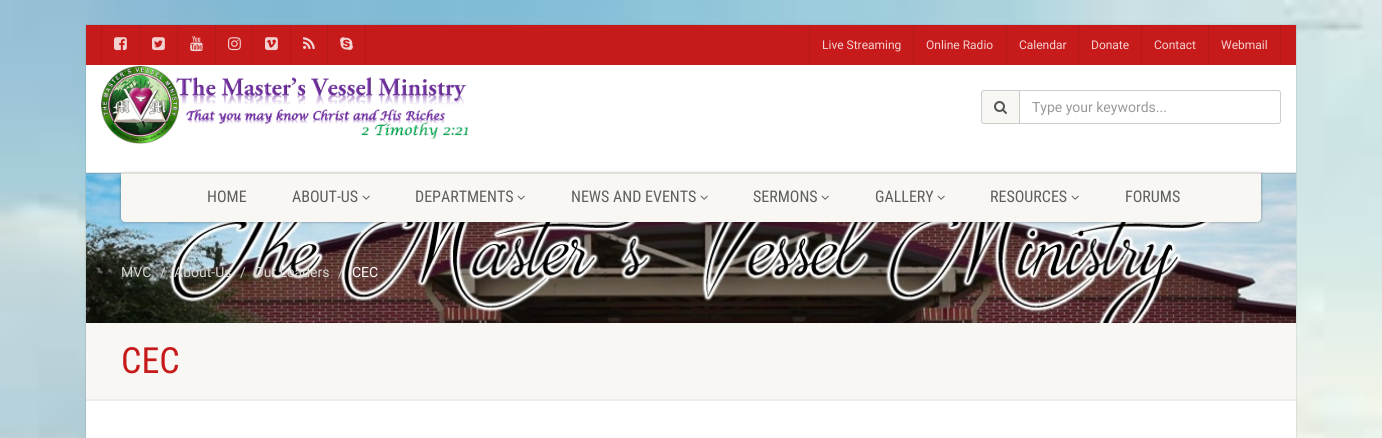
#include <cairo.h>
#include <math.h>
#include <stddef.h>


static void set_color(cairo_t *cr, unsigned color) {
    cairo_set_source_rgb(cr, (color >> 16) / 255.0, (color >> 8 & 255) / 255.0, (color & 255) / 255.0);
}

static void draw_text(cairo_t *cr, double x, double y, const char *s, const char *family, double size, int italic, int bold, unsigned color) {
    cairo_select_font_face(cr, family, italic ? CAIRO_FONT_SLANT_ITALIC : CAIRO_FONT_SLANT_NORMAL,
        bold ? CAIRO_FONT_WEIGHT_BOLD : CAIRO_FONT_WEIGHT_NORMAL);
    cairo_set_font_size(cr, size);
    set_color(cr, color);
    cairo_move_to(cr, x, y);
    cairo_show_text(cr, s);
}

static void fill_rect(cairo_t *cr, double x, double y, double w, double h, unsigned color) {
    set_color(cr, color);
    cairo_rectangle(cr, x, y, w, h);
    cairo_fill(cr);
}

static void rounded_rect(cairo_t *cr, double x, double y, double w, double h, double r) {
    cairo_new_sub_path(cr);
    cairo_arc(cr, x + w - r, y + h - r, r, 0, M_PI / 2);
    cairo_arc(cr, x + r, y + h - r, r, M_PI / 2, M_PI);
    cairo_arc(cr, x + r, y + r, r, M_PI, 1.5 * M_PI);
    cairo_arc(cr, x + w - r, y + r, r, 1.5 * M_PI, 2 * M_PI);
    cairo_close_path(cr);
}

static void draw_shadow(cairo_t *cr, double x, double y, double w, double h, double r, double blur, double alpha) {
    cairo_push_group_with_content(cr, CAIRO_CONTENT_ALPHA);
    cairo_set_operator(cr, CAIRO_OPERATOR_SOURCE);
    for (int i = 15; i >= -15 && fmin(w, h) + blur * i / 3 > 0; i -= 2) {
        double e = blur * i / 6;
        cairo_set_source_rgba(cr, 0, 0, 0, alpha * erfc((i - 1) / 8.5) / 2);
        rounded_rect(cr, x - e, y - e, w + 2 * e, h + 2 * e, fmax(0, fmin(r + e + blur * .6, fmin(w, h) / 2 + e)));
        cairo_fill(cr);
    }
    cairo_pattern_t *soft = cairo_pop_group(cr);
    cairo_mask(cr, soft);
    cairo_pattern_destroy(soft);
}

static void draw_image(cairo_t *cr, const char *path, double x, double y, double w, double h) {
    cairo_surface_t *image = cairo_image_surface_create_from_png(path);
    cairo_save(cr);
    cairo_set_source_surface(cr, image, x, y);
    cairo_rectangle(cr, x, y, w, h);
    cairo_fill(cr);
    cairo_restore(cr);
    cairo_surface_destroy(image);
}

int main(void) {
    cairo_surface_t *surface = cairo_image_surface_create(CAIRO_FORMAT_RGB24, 1382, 438);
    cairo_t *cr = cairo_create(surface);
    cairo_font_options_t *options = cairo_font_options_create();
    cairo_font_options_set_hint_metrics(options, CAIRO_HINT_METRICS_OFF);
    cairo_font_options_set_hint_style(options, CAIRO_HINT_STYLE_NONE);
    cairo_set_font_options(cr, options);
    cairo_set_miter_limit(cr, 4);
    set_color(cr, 0xFFFFFF);
    cairo_paint(cr);
    draw_image(cr, "assets/img1.png", 0, 0, 1382, 438);
    set_color(cr, 0x000000);
    draw_shadow(cr, 86, 25, 1210, 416, 0, 1, 0.2);
    fill_rect(cr, 86, 65, 1210, 373, 0xFFFFFF);
    fill_rect(cr, 86, 25, 1210, 40, 0xC71B1B);
    fill_rect(cr, 139, 25, 1, 40, 0xB71919);
    fill_rect(cr, 101, 25, 1, 40, 0xB71919);
    draw_image(cr, "assets/img2.png", 114, 37, 13, 14);
    fill_rect(cr, 177, 25, 1, 40, 0xB71919);
    draw_image(cr, "assets/img3.png", 152, 37, 13, 14);
    fill_rect(cr, 215, 25, 1, 40, 0xB71919);
    draw_image(cr, "assets/img4.png", 190, 36, 13, 16);
    fill_rect(cr, 252, 25, 1, 40, 0xB71919);
    draw_image(cr, "assets/img5.png", 228, 37, 13, 14);
    fill_rect(cr, 290, 25, 1, 40, 0xB71919);
    draw_image(cr, "assets/img6.png", 265, 37, 13, 14);
    fill_rect(cr, 327, 25, 1, 40, 0xB71919);
    draw_image(cr, "assets/img7.png", 303, 37, 12, 12);
    fill_rect(cr, 365, 25, 1, 40, 0xB71919);
    draw_image(cr, "assets/img8.png", 340, 37, 13, 14);
    fill_rect(cr, 913, 25, 1, 40, 0xB71919);
    fill_rect(cr, 809, 25, 1, 40, 0xB71919);
    draw_text(cr, 822, 49, "Live Streaming", "Roboto", 12, 0, 0, 0xF4D1D1);
    fill_rect(cr, 1006, 25, 1, 40, 0xB71919);
    draw_text(cr, 926, 49, "Online Radio", "Roboto", 12, 0, 0, 0xF4D1D1);
    fill_rect(cr, 1078, 25, 1, 40, 0xB71919);
    draw_text(cr, 1019, 49, "Calendar", "Roboto", 12, 0, 0, 0xF4D1D1);
    fill_rect(cr, 1141, 25, 1, 40, 0xB71919);
    draw_text(cr, 1091, 49, "Donate", "Roboto", 12, 0, 0, 0xF4D1D1);
    fill_rect(cr, 1208, 25, 1, 40, 0xB71919);
    draw_text(cr, 1154, 49, "Contact", "Roboto", 12, 0, 0, 0xF4D1D1);
    fill_rect(cr, 1280, 25, 1, 40, 0xB71919);
    draw_text(cr, 1221, 49, "Webmail", "Roboto", 12, 0, 0, 0xF4D1D1);
    draw_image(cr, "assets/img12.png", 86, 173, 1210, 150);
    set_color(cr, 0x000000);
    draw_shadow(cr, 121, 172, 1140, 50, 4, 1.5, 0.4);
    set_color(cr, 0xF8F7F3);
    cairo_new_path(cr);
    cairo_move_to(cr, 121, 172);
    cairo_line_to(cr, 1261, 172);
    cairo_line_to(cr, 1261, 218);
    cairo_curve_to(cr, 1261, 220, 1259, 222, 1257, 222);
    cairo_line_to(cr, 125, 222);
    cairo_curve_to(cr, 123, 222, 121, 220, 121, 218);
    cairo_close_path(cr);
    cairo_fill(cr);
    cairo_set_source_rgba(cr, 0, 0, 0, 0.1);
    cairo_rectangle(cr, 86, 172, 1210, 2);
    cairo_fill(cr);
    cairo_set_source_rgba(cr, 1, 1, 1, 0.8);
    cairo_rectangle(cr, 120, 169, 1142, 3);
    cairo_fill(cr);
    draw_image(cr, "assets/img9.png", 101, 66, 368, 78);
    set_color(cr, 0xF8F7F3);
    cairo_new_path(cr);
    cairo_move_to(cr, 984, 90);
    cairo_line_to(cr, 1019, 90);
    cairo_line_to(cr, 1019, 124);
    cairo_line_to(cr, 984, 124);
    cairo_curve_to(cr, 982.5, 124, 981, 122.5, 981, 121);
    cairo_line_to(cr, 981, 93);
    cairo_curve_to(cr, 981, 91.5, 982.5, 90, 984, 90);
    cairo_close_path(cr);
    cairo_fill(cr);
    set_color(cr, 0xCCCCCC);
    cairo_set_fill_rule(cr, CAIRO_FILL_RULE_EVEN_ODD);
    cairo_new_path(cr);
    cairo_move_to(cr, 984, 90);
    cairo_line_to(cr, 1019, 90);
    cairo_line_to(cr, 1019, 124);
    cairo_line_to(cr, 984, 124);
    cairo_curve_to(cr, 982.5, 124, 981, 122.5, 981, 121);
    cairo_line_to(cr, 981, 93);
    cairo_curve_to(cr, 981, 91.5, 982.5, 90, 984, 90);
    cairo_close_path(cr);
    cairo_move_to(cr, 984, 91);
    cairo_line_to(cr, 1019, 91);
    cairo_line_to(cr, 1019, 123);
    cairo_line_to(cr, 984, 123);
    cairo_curve_to(cr, 983, 123, 982, 122, 982, 121);
    cairo_line_to(cr, 982, 93);
    cairo_curve_to(cr, 982, 92, 983, 91, 984, 91);
    cairo_close_path(cr);
    cairo_fill(cr);
    draw_image(cr, "assets/img10.png", 994, 101, 13, 13);
    cairo_new_path(cr);
    cairo_move_to(cr, 1019.5, 90.5);
    cairo_line_to(cr, 1278, 90.5);
    cairo_curve_to(cr, 1279.5, 90.5, 1280.5, 91.5, 1280.5, 93);
    cairo_line_to(cr, 1280.5, 121);
    cairo_curve_to(cr, 1280.5, 122.5, 1279.5, 123.5, 1278, 123.5);
    cairo_line_to(cr, 1019.5, 123.5);
    cairo_close_path(cr);
    cairo_set_line_width(cr, 1);
    cairo_stroke(cr);
    draw_text(cr, 1032, 112, "Type your keywords...", "Roboto", 14, 0, 0, 0x999999);
    draw_text(cr, 207, 202, "HOME", "Roboto Condensed", 16, 0, 0, 0x5E5E5E);
    draw_text(cr, 292, 202, "ABOUT-US", "Roboto Condensed", 16, 0, 0, 0x5E5E5E);
    draw_image(cr, "assets/img11.png", 362, 195, 8, 5);
    draw_text(cr, 415, 202, "DEPARTMENTS", "Roboto Condensed", 16, 0, 0, 0x5E5E5E);
    draw_image(cr, "assets/img11.png", 517, 195, 8, 5);
    draw_text(cr, 571, 202, "NEWS AND EVENTS", "Roboto Condensed", 16, 0, 0, 0x5E5E5E);
    draw_image(cr, "assets/img11.png", 700, 195, 8, 5);
    draw_text(cr, 753, 202, "SERMONS", "Roboto Condensed", 16, 0, 0, 0x5E5E5E);
    draw_image(cr, "assets/img11.png", 821, 195, 8, 5);
    draw_text(cr, 875, 202, "GALLERY", "Roboto Condensed", 16, 0, 0, 0x5E5E5E);
    draw_image(cr, "assets/img11.png", 937, 195, 8, 5);
    draw_text(cr, 990, 202, "RESOURCES", "Roboto Condensed", 16, 0, 0, 0x5E5E5E);
    draw_image(cr, "assets/img11.png", 1071, 195, 8, 5);
    draw_text(cr, 1125, 202, "FORUMS", "Roboto Condensed", 16, 0, 0, 0x5E5E5E);
    draw_text(cr, 121, 277, "MVC", "Roboto", 14, 0, 0, 0xD8D6D1);
    draw_text(cr, 160, 277, "/", "Roboto", 14, 0, 0, 0xCCCCCC);
    draw_text(cr, 174, 277, "About-Us", "Roboto", 14, 0, 0, 0xD8D6D1);
    draw_text(cr, 240, 277, "/", "Roboto", 14, 0, 0, 0xCCCCCC);
    draw_text(cr, 254, 277, "Our Leaders", "Roboto", 14, 0, 0, 0xD8D6D1);
    draw_text(cr, 338, 277, "/", "Roboto", 14, 0, 0, 0xCCCCCC);
    draw_text(cr, 352, 277, "CEC", "Roboto", 14, 0, 0, 0xFFFFFF);
    fill_rect(cr, 86, 399, 1210, 2, 0xEDEDED);
    fill_rect(cr, 86, 323, 1210, 76, 0xF8F7F3);
    draw_text(cr, 121, 373, "CEC", "Roboto Condensed", 36, 0, 0, 0xC71B1B);
    cairo_surface_write_to_png(surface, "output.png");
    cairo_font_options_destroy(options);
    cairo_destroy(cr);
    cairo_surface_destroy(surface);
    return 0;
}
